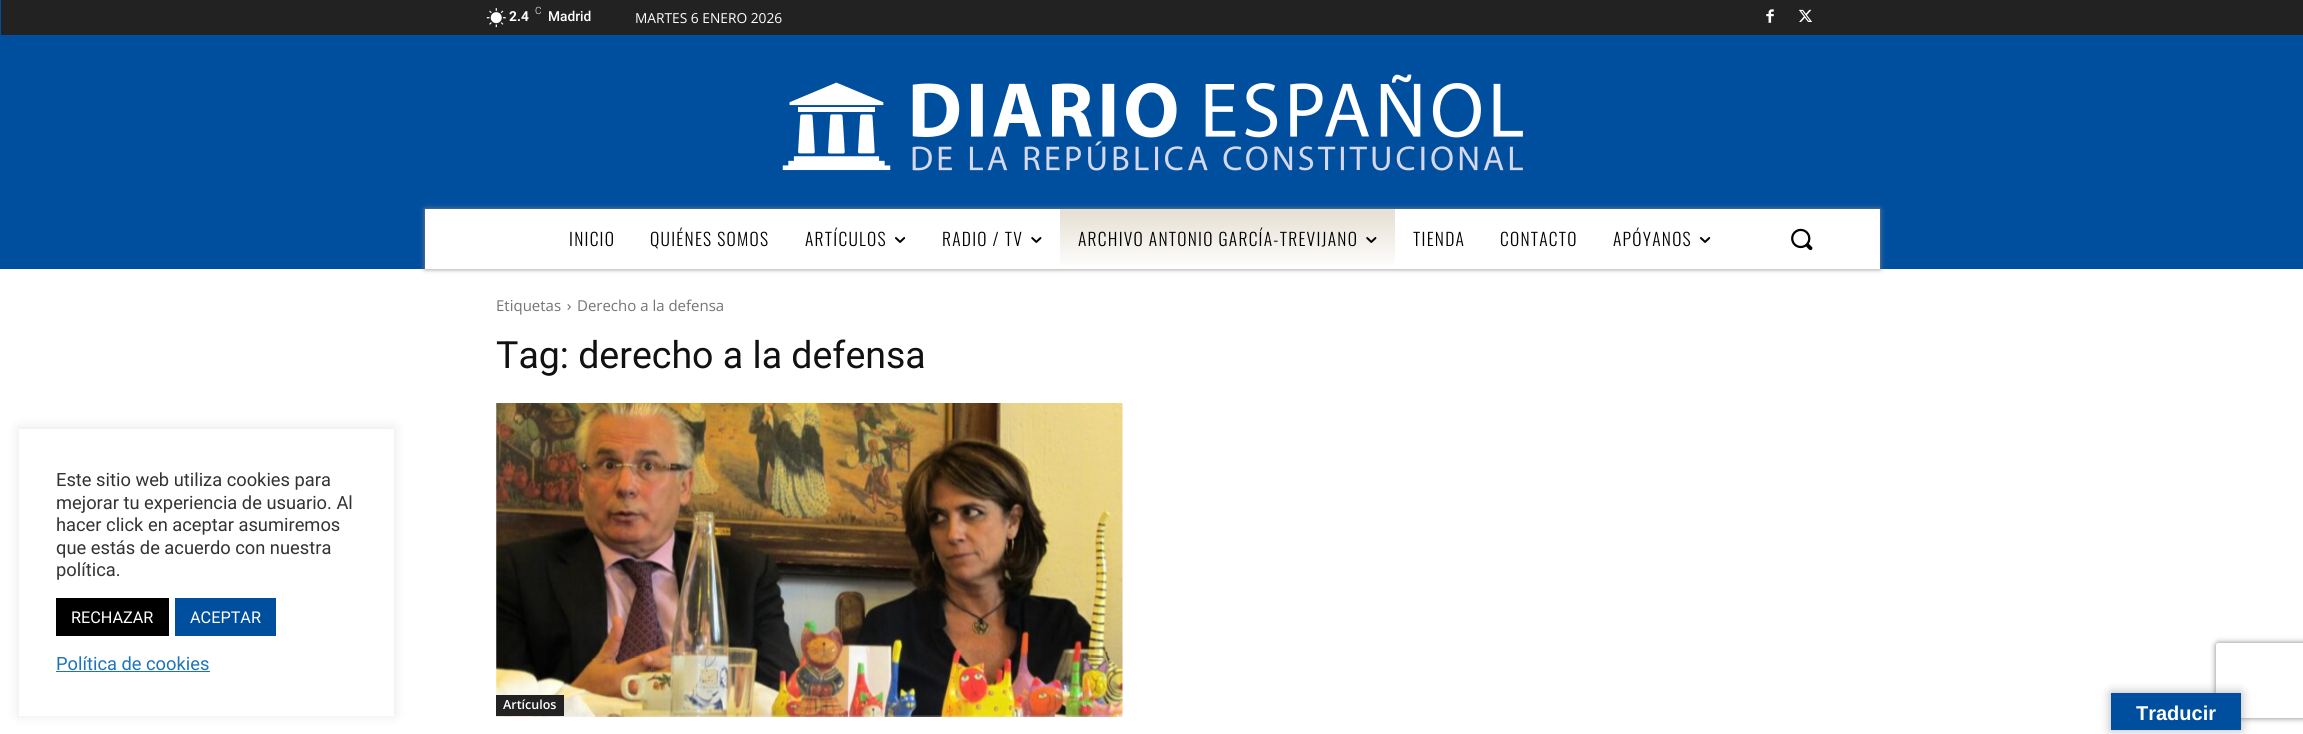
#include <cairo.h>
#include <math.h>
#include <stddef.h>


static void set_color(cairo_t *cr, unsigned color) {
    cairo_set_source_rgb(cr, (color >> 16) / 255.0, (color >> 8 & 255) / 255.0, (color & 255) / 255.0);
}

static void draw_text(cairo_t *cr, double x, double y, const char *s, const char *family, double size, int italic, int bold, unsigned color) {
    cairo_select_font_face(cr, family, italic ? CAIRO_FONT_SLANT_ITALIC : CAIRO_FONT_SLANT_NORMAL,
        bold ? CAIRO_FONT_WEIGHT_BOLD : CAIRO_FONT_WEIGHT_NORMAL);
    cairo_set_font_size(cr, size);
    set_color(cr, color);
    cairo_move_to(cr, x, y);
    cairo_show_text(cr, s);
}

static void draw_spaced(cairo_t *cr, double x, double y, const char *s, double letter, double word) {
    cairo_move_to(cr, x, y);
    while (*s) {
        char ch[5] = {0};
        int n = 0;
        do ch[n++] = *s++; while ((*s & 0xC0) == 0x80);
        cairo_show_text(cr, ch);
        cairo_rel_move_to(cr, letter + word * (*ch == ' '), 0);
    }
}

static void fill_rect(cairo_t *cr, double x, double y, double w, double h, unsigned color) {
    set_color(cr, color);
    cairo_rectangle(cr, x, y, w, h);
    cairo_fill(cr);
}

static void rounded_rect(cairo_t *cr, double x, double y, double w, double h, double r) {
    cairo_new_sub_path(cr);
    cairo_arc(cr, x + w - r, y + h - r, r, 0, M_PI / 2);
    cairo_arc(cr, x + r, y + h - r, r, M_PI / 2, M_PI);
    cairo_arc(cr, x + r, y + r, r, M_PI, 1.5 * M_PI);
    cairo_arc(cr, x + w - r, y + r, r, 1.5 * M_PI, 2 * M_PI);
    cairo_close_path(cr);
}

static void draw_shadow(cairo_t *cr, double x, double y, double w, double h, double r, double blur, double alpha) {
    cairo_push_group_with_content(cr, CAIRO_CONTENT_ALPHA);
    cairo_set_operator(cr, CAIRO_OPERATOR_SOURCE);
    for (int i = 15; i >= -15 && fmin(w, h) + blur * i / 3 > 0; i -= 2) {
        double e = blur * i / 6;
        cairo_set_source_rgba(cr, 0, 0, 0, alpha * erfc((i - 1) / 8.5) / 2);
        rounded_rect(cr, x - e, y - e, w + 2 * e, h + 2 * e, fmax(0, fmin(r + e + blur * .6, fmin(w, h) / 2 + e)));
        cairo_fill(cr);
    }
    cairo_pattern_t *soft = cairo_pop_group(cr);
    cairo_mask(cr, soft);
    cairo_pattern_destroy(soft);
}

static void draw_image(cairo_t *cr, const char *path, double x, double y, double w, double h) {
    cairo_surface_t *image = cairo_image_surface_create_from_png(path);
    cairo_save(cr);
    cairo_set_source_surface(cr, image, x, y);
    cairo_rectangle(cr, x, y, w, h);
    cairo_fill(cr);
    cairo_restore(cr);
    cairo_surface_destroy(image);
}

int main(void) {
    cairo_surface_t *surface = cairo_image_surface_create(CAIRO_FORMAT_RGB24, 2303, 734);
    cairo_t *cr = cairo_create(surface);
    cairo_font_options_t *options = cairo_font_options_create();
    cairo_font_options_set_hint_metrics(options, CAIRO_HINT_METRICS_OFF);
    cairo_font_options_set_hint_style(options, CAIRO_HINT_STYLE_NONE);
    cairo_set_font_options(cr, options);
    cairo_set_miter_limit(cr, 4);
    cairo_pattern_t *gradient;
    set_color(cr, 0xFFFFFF);
    cairo_paint(cr);
    set_color(cr, 0xACABAB);
    draw_shadow(cr, 19, 428, 375, 287, 0, 6, 0.3);
    fill_rect(cr, 19, 429, 375, 287, 0xFFFFFF);
    draw_text(cr, 56, 486, "Este sitio web utiliza cookies para", "Roboto", 18.3, 0, 0, 0x333333);
    draw_text(cr, 56, 509, "mejorar tu experiencia de usuario. Al", "Roboto", 18.3, 0, 0, 0x333333);
    draw_text(cr, 56, 531, "hacer click en aceptar asumiremos", "Roboto", 18.3, 0, 0, 0x333333);
    draw_text(cr, 56, 554, "que estás de acuerdo con nuestra", "Roboto", 18.3, 0, 0, 0x333333);
    draw_text(cr, 56, 576, "política.", "Roboto", 18.3, 0, 0, 0x333333);
    fill_rect(cr, 56, 598, 113, 38, 0x000000);
    draw_text(cr, 71, 623, "RECHAZAR", "Roboto", 16.25, 0, 0, 0xFFFFFF);
    fill_rect(cr, 175, 598, 101, 38, 0x004F9F);
    draw_text(cr, 190, 623, "ACEPTAR", "Roboto", 16.25, 0, 0, 0xFFFFFF);
    draw_text(cr, 56, 670, "Política de cookies", "Roboto", 18.3, 0, 0, 0x1E73BE);
    fill_rect(cr, 56, 671, 154, 1, 0x1E73BE);
    fill_rect(cr, 0, 0, 2303, 269, 0x004F9F);
    fill_rect(cr, 1, 0, 2302, 35, 0x222222);
    draw_image(cr, "assets/img1.png", 486, 8, 20, 20);
    draw_text(cr, 509, 21, "2.4", "Roboto", 13.75, 0, 1, 0xFFFFFF);
    draw_text(cr, 535, 14, "C", "Roboto Light", 10, 0, 0, 0xFFFFFF);
    draw_text(cr, 548, 21, "Madrid", "Roboto Medium", 13.75, 0, 0, 0xFFFFFF);
    draw_text(cr, 635, 23, "MARTES 6 ENERO 2026", "Open Sans", 13.75, 0, 0, 0xFFFFFF);
    draw_image(cr, "assets/img2.png", 1766, 9, 8, 14);
    draw_image(cr, "assets/img3.png", 1798, 9, 15, 13);
    draw_image(cr, "assets/img4.png", 782, 74, 741, 97);
    set_color(cr, 0x888888);
    draw_shadow(cr, 425, 209, 1455, 60, 0, 2.5, 1);
    fill_rect(cr, 425, 209, 1455, 60, 0xFFFFFF);
    cairo_select_font_face(cr, "Oswald Light", CAIRO_FONT_SLANT_NORMAL, CAIRO_FONT_WEIGHT_NORMAL);
    cairo_set_font_size(cr, 17.5);
    set_color(cr, 0x000000);
    draw_spaced(cr, 569, 246, "INICIO", 1.25, 0);
    draw_spaced(cr, 650, 246, "QUIÉNES SOMOS", 1.25, 0);
    draw_spaced(cr, 805, 246, "ARTÍCULOS", 1.25, 0);
    draw_image(cr, "assets/img5.png", 895, 237, 11, 6);
    draw_spaced(cr, 942, 246, "RADIO / TV", 1.25, 0);
    draw_image(cr, "assets/img6.png", 1031, 237, 11, 6);
    gradient = cairo_pattern_create_linear(1228, 269, 1228, 209);
    cairo_pattern_add_color_stop_rgba(gradient, 0, 1, 1, 1, 1);
    cairo_pattern_add_color_stop_rgba(gradient, 0.93, 0.906, 0.882, 0.835, 1);
    cairo_set_source(cr, gradient);
    cairo_pattern_destroy(gradient);
    cairo_rectangle(cr, 1060, 209, 335, 57);
    cairo_fill(cr);
    set_color(cr, 0x000000);
    draw_spaced(cr, 1078, 246, "ARCHIVO ANTONIO GARCÍA-TREVIJANO", 1.25, 0);
    draw_image(cr, "assets/img7.png", 1366, 237, 11, 6);
    draw_spaced(cr, 1413, 246, "TIENDA", 1.25, 0);
    draw_spaced(cr, 1500, 246, "CONTACTO", 1.25, 0);
    draw_spaced(cr, 1613, 246, "APÓYANOS", 1.25, 0);
    draw_image(cr, "assets/img5.png", 1700, 237, 11, 6);
    draw_image(cr, "assets/img8.png", 1791, 228, 22, 23);
    draw_text(cr, 496, 311, "Etiquetas", "Open Sans", 15, 0, 0, 0x747474);
    draw_image(cr, "assets/img9.png", 567, 304, 4, 6);
    draw_text(cr, 577, 311, "Derecho a la defensa", "Open Sans", 15, 0, 0, 0x747474);
    draw_text(cr, 496, 368, "Tag: derecho a la defensa", "Roboto", 37.5, 0, 0, 0x111111);
    draw_image(cr, "assets/img10.png", 496, 403, 627, 314);
    fill_rect(cr, 496, 695, 68, 21, 0x222222);
    draw_text(cr, 503, 709, "Artículos", "Open Sans SemiBold", 12.5, 0, 0, 0xFFFFFF);
    set_color(cr, 0x000000);
    draw_shadow(cr, 2111, 693, 130, 37, 0, 5.5, 0.3);
    cairo_save(cr);
    cairo_set_fill_rule(cr, CAIRO_FILL_RULE_EVEN_ODD);
    cairo_new_path(cr);
    cairo_move_to(cr, 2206, 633);
    cairo_line_to(cr, 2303, 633);
    cairo_line_to(cr, 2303, 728);
    cairo_line_to(cr, 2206, 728);
    cairo_close_path(cr);
    cairo_move_to(cr, 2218.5, 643);
    cairo_line_to(cr, 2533.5, 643);
    cairo_curve_to(cr, 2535, 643, 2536, 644, 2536, 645.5);
    cairo_line_to(cr, 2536, 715.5);
    cairo_curve_to(cr, 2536, 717, 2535, 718, 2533.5, 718);
    cairo_line_to(cr, 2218.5, 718);
    cairo_curve_to(cr, 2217, 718, 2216, 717, 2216, 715.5);
    cairo_line_to(cr, 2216, 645.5);
    cairo_curve_to(cr, 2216, 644, 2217, 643, 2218.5, 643);
    cairo_close_path(cr);
    cairo_clip(cr);
    set_color(cr, 0x808080);
    draw_shadow(cr, 2216, 643, 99, 75, 2.5, 3, 1);
    cairo_restore(cr);
    fill_rect(cr, 2111, 693, 130, 37, 0x004F9F);
    draw_text(cr, 2136, 720, "Traducir", "Liberation Sans", 20, 0, 1, 0xFFFFFF);
    cairo_surface_write_to_png(surface, "output.png");
    cairo_font_options_destroy(options);
    cairo_destroy(cr);
    cairo_surface_destroy(surface);
    return 0;
}
